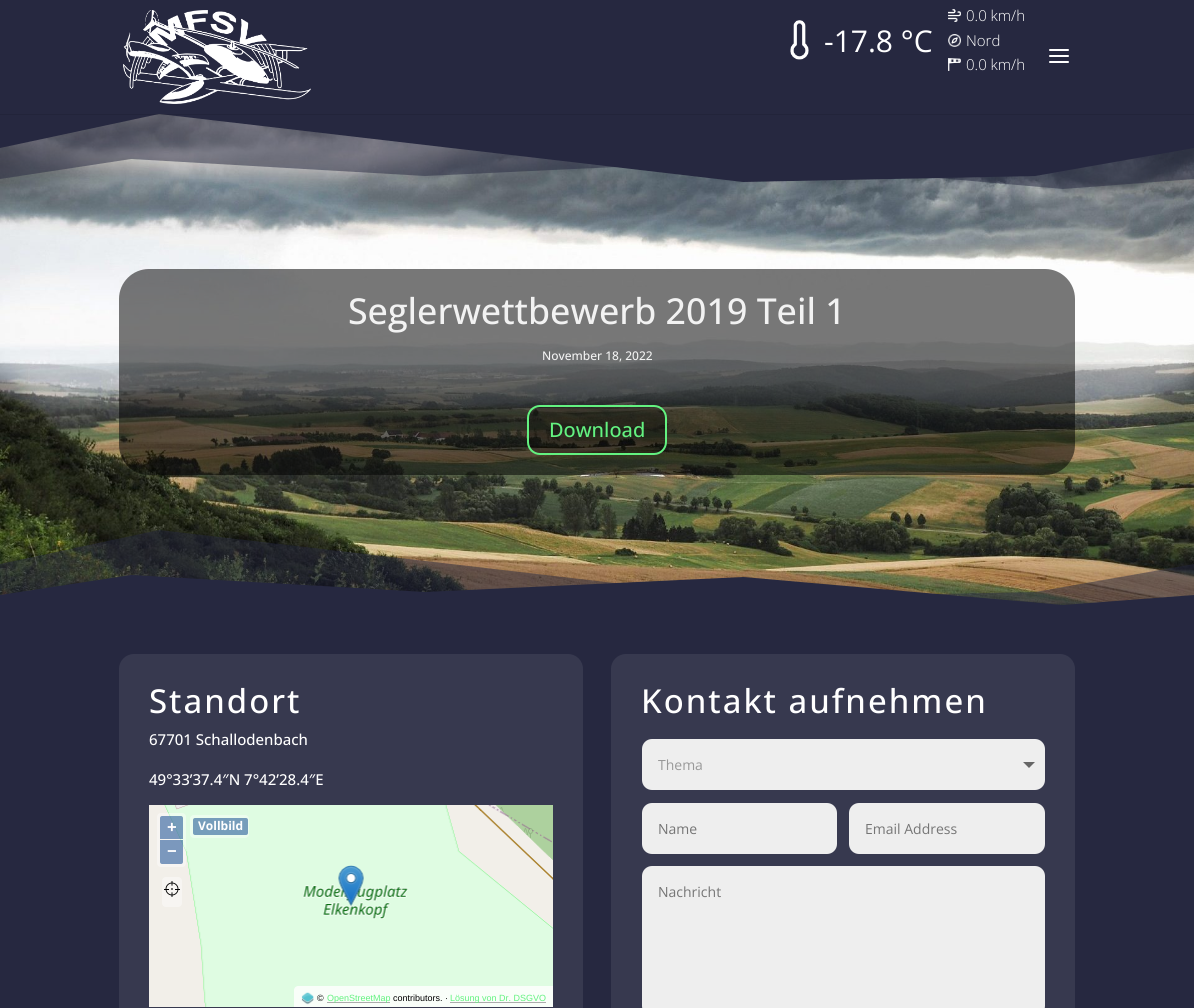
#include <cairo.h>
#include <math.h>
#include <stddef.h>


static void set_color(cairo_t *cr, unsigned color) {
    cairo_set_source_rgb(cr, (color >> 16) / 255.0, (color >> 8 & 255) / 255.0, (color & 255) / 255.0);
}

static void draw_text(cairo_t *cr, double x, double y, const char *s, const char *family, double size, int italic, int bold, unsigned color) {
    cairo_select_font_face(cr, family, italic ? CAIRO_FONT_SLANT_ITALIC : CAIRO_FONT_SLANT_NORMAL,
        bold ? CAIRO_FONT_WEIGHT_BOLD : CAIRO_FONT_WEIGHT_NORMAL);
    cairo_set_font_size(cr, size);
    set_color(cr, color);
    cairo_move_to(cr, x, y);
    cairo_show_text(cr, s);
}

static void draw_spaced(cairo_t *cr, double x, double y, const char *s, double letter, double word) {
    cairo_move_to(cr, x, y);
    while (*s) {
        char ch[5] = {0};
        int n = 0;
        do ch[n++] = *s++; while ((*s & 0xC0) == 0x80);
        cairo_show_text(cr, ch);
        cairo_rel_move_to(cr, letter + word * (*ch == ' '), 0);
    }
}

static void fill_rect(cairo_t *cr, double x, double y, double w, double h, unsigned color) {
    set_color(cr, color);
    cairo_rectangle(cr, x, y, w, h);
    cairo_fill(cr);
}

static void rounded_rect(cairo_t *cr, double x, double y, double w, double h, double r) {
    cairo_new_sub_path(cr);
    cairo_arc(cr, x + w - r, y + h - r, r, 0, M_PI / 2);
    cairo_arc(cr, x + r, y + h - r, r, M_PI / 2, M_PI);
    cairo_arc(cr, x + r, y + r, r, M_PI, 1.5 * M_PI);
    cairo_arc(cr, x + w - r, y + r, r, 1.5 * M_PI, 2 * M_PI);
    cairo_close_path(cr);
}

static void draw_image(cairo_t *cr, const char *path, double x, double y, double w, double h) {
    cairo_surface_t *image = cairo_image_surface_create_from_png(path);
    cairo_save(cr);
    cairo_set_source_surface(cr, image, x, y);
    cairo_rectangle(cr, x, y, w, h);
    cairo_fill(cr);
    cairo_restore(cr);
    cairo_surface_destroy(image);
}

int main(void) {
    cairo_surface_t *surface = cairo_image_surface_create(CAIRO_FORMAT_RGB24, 1194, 1008);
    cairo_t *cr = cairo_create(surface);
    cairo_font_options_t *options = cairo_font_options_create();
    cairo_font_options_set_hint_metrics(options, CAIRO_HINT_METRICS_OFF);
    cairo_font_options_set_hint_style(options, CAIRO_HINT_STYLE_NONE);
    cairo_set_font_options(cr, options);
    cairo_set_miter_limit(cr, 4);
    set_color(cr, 0xFFFFFF);
    cairo_paint(cr);
    draw_image(cr, "assets/img7.png", 0, 114, 1194, 491);
    cairo_set_source_rgba(cr, 0.149, 0.157, 0.251, 0.5);
    cairo_new_path(cr);
    cairo_move_to(cr, 0, 179);
    cairo_line_to(cr, 131, 159);
    cairo_line_to(cr, 425, 176);
    cairo_line_to(cr, 743, 161);
    cairo_line_to(cr, 1063, 189);
    cairo_line_to(cr, 1194, 179);
    cairo_line_to(cr, 1194, 114);
    cairo_line_to(cr, 0, 114);
    cairo_close_path(cr);
    cairo_fill(cr);
    set_color(cr, 0x262840);
    cairo_new_path(cr);
    cairo_move_to(cr, 0, 114);
    cairo_line_to(cr, 0, 148);
    cairo_line_to(cr, 159, 114);
    cairo_line_to(cr, 743, 182);
    cairo_line_to(cr, 1035, 176);
    cairo_line_to(cr, 1194, 148);
    cairo_line_to(cr, 1194, 114);
    cairo_close_path(cr);
    cairo_fill(cr);
    cairo_set_source_rgba(cr, 0, 0, 0, 0.1);
    cairo_rectangle(cr, 0, 114, 1194, 1);
    cairo_fill(cr);
    fill_rect(cr, 0, 0, 1194, 114, 0x262840);
    draw_image(cr, "assets/img1.png", 123, 10, 188, 94);
    draw_image(cr, "assets/img2.png", 790, 20, 19, 40);
    draw_text(cr, 824, 52, "-17.8 °C", "Open Sans", 30, 0, 0, 0xFFFFFF);
    draw_image(cr, "assets/img3.png", 948, 9, 13, 13);
    draw_text(cr, 966, 21, "0.0 km/h", "Open Sans Light", 15, 0, 0, 0xFFFFFF);
    draw_image(cr, "assets/img4.png", 948, 34, 13, 13);
    draw_text(cr, 966, 46, "Nord", "Open Sans Light", 15, 0, 0, 0xFFFFFF);
    draw_image(cr, "assets/img5.png", 948, 58, 13, 13);
    draw_text(cr, 966, 70, "0.0 km/h", "Open Sans Light", 15, 0, 0, 0xFFFFFF);
    draw_image(cr, "assets/img6.png", 1049, 49, 20, 14);
    cairo_set_source_rgba(cr, 0, 0, 0, 0.53);
    rounded_rect(cr, 119, 269, 956, 206, 30);
    cairo_fill(cr);
    draw_text(cr, 348, 324, "Seglerwettbewerb 2019 Teil 1", "Open Sans Medium", 35.75, 0, 0, 0xF2F2F2);
    draw_text(cr, 542, 360, "November 18, 2022", "Open Sans Medium", 12, 0, 0, 0xF2F2F2);
    cairo_set_source_rgba(cr, 0, 0, 0, 0.3);
    rounded_rect(cr, 528, 406, 138, 48, 12);
    cairo_fill_preserve(cr);
    set_color(cr, 0x63F280);
    cairo_stroke(cr);
    draw_text(cr, 549, 437, "Download", "Open Sans Medium", 20, 0, 0, 0x63F280);
    cairo_set_source_rgba(cr, 0.149, 0.157, 0.251, 0.5);
    cairo_new_path(cr);
    cairo_move_to(cr, 0, 564);
    cairo_line_to(cr, 159, 530);
    cairo_line_to(cr, 743, 598);
    cairo_line_to(cr, 1035, 592);
    cairo_line_to(cr, 1194, 564);
    cairo_line_to(cr, 1194, 630);
    cairo_line_to(cr, 0, 630);
    cairo_close_path(cr);
    cairo_fill(cr);
    set_color(cr, 0x262840);
    cairo_new_path(cr);
    cairo_move_to(cr, 0, 595);
    cairo_line_to(cr, 131, 575);
    cairo_line_to(cr, 425, 592);
    cairo_line_to(cr, 743, 577);
    cairo_line_to(cr, 1063, 605);
    cairo_line_to(cr, 1194, 595);
    cairo_line_to(cr, 1194, 630);
    cairo_line_to(cr, 0, 630);
    cairo_close_path(cr);
    cairo_fill(cr);
    fill_rect(cr, 0, 630, 1194, 378, 0x262840);
    set_color(cr, 0x37394F);
    rounded_rect(cr, 119, 654, 464, 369, 15);
    cairo_fill(cr);
    cairo_set_font_size(cr, 33);
    set_color(cr, 0xFFFFFF);
    draw_spaced(cr, 149, 713, "Standort", 2, 0);
    draw_text(cr, 149, 745, "67701 Schallodenbach", "Open Sans Medium", 15, 0, 0, 0xFFFFFF);
    draw_text(cr, 149, 785, "49°33’37.4″N 7°42’28.4″E", "Open Sans Medium", 15, 0, 0, 0xFFFFFF);
    draw_image(cr, "assets/img8.png", 149, 805, 404, 202);
    cairo_set_source_rgba(cr, 1, 1, 1, 0.4);
    rounded_rect(cr, 157, 813, 29, 54, 4);
    cairo_fill(cr);
    cairo_set_source_rgba(cr, 0, 0.235, 0.533, 0.5);
    cairo_new_path(cr);
    cairo_move_to(cr, 162, 816);
    cairo_line_to(cr, 181, 816);
    cairo_curve_to(cr, 182, 816, 183, 817, 183, 818);
    cairo_line_to(cr, 183, 839);
    cairo_line_to(cr, 160, 839);
    cairo_line_to(cr, 160, 818);
    cairo_curve_to(cr, 160, 817, 161, 816, 162, 816);
    cairo_close_path(cr);
    cairo_fill(cr);
    draw_text(cr, 167, 833, "+", "Open Sans", 17, 0, 1, 0xFFFFFF);
    cairo_set_source_rgba(cr, 0, 0.235, 0.533, 0.5);
    cairo_new_path(cr);
    cairo_move_to(cr, 160, 840);
    cairo_line_to(cr, 183, 840);
    cairo_line_to(cr, 183, 862);
    cairo_curve_to(cr, 183, 863, 182, 864, 181, 864);
    cairo_line_to(cr, 162, 864);
    cairo_curve_to(cr, 161, 864, 160, 863, 160, 862);
    cairo_close_path(cr);
    cairo_fill(cr);
    draw_text(cr, 167, 857, "−", "Open Sans", 17, 0, 1, 0xFFFFFF);
    set_color(cr, 0xECFDEE);
    rounded_rect(cr, 190, 815, 59, 23, 4);
    cairo_fill(cr);
    set_color(cr, 0x769DBB);
    rounded_rect(cr, 193, 818, 55, 17, 2);
    cairo_fill(cr);
    draw_text(cr, 198, 830, "Vollbild", "Open Sans", 12, 0, 1, 0xFFFFFF);
    set_color(cr, 0xF7F5F2);
    rounded_rect(cr, 162, 877, 20, 30, 4);
    cairo_fill(cr);
    draw_image(cr, "assets/img9.png", 164, 881, 16, 16);
    set_color(cr, 0xF9FEF9);
    cairo_new_path(cr);
    cairo_move_to(cr, 298, 986);
    cairo_line_to(cr, 553, 986);
    cairo_line_to(cr, 553, 1007);
    cairo_line_to(cr, 294, 1007);
    cairo_line_to(cr, 294, 990);
    cairo_curve_to(cr, 294, 988, 296, 986, 298, 986);
    cairo_close_path(cr);
    cairo_fill(cr);
    draw_image(cr, "assets/img10.png", 301, 992, 13, 13);
    draw_text(cr, 317, 1001, "©", "Liberation Sans", 9, 0, 0, 0x000000);
    fill_rect(cr, 327, 1002, 63, 1, 0xACACAC);
    draw_text(cr, 327, 1001, "OpenStreetMap", "Liberation Sans", 9, 0, 0, 0x63F280);
    draw_text(cr, 393, 1001, "contributors. ·", "Liberation Sans", 9, 0, 0, 0x000000);
    fill_rect(cr, 450, 1002, 96, 1, 0xACACAC);
    draw_text(cr, 450, 1001, "Lösung von Dr. DSGVO", "Liberation Sans", 9, 0, 0, 0x63F280);
    set_color(cr, 0x37394F);
    rounded_rect(cr, 611, 654, 464, 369, 15);
    cairo_fill(cr);
    cairo_select_font_face(cr, "Open Sans Medium", CAIRO_FONT_SLANT_NORMAL, CAIRO_FONT_WEIGHT_NORMAL);
    cairo_set_font_size(cr, 33);
    set_color(cr, 0xFFFFFF);
    draw_spaced(cr, 641, 713, "Kontakt aufnehmen", 2, 0);
    set_color(cr, 0xEEEEEE);
    rounded_rect(cr, 642, 739, 403, 51, 10);
    cairo_fill(cr);
    draw_text(cr, 658, 770, "Thema", "Open Sans", 14, 0, 0, 0x999999);
    set_color(cr, 0x666666);
    cairo_new_path(cr);
    cairo_move_to(cr, 1023, 762);
    cairo_line_to(cr, 1035, 762);
    cairo_line_to(cr, 1029, 768);
    cairo_close_path(cr);
    cairo_fill(cr);
    set_color(cr, 0xEEEEEE);
    rounded_rect(cr, 642, 803, 195, 51, 10);
    cairo_fill(cr);
    draw_text(cr, 658, 834, "Name", "Open Sans", 14, 0, 0, 0x757575);
    set_color(cr, 0xEEEEEE);
    rounded_rect(cr, 849, 803, 196, 51, 10);
    cairo_fill(cr);
    draw_text(cr, 865, 834, "Email Address", "Open Sans", 14, 0, 0, 0x757575);
    set_color(cr, 0xEEEEEE);
    rounded_rect(cr, 642, 866, 403, 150, 10);
    cairo_fill(cr);
    draw_text(cr, 658, 897, "Nachricht", "Open Sans", 14, 0, 0, 0x757575);
    cairo_surface_write_to_png(surface, "output.png");
    cairo_font_options_destroy(options);
    cairo_destroy(cr);
    cairo_surface_destroy(surface);
    return 0;
}
